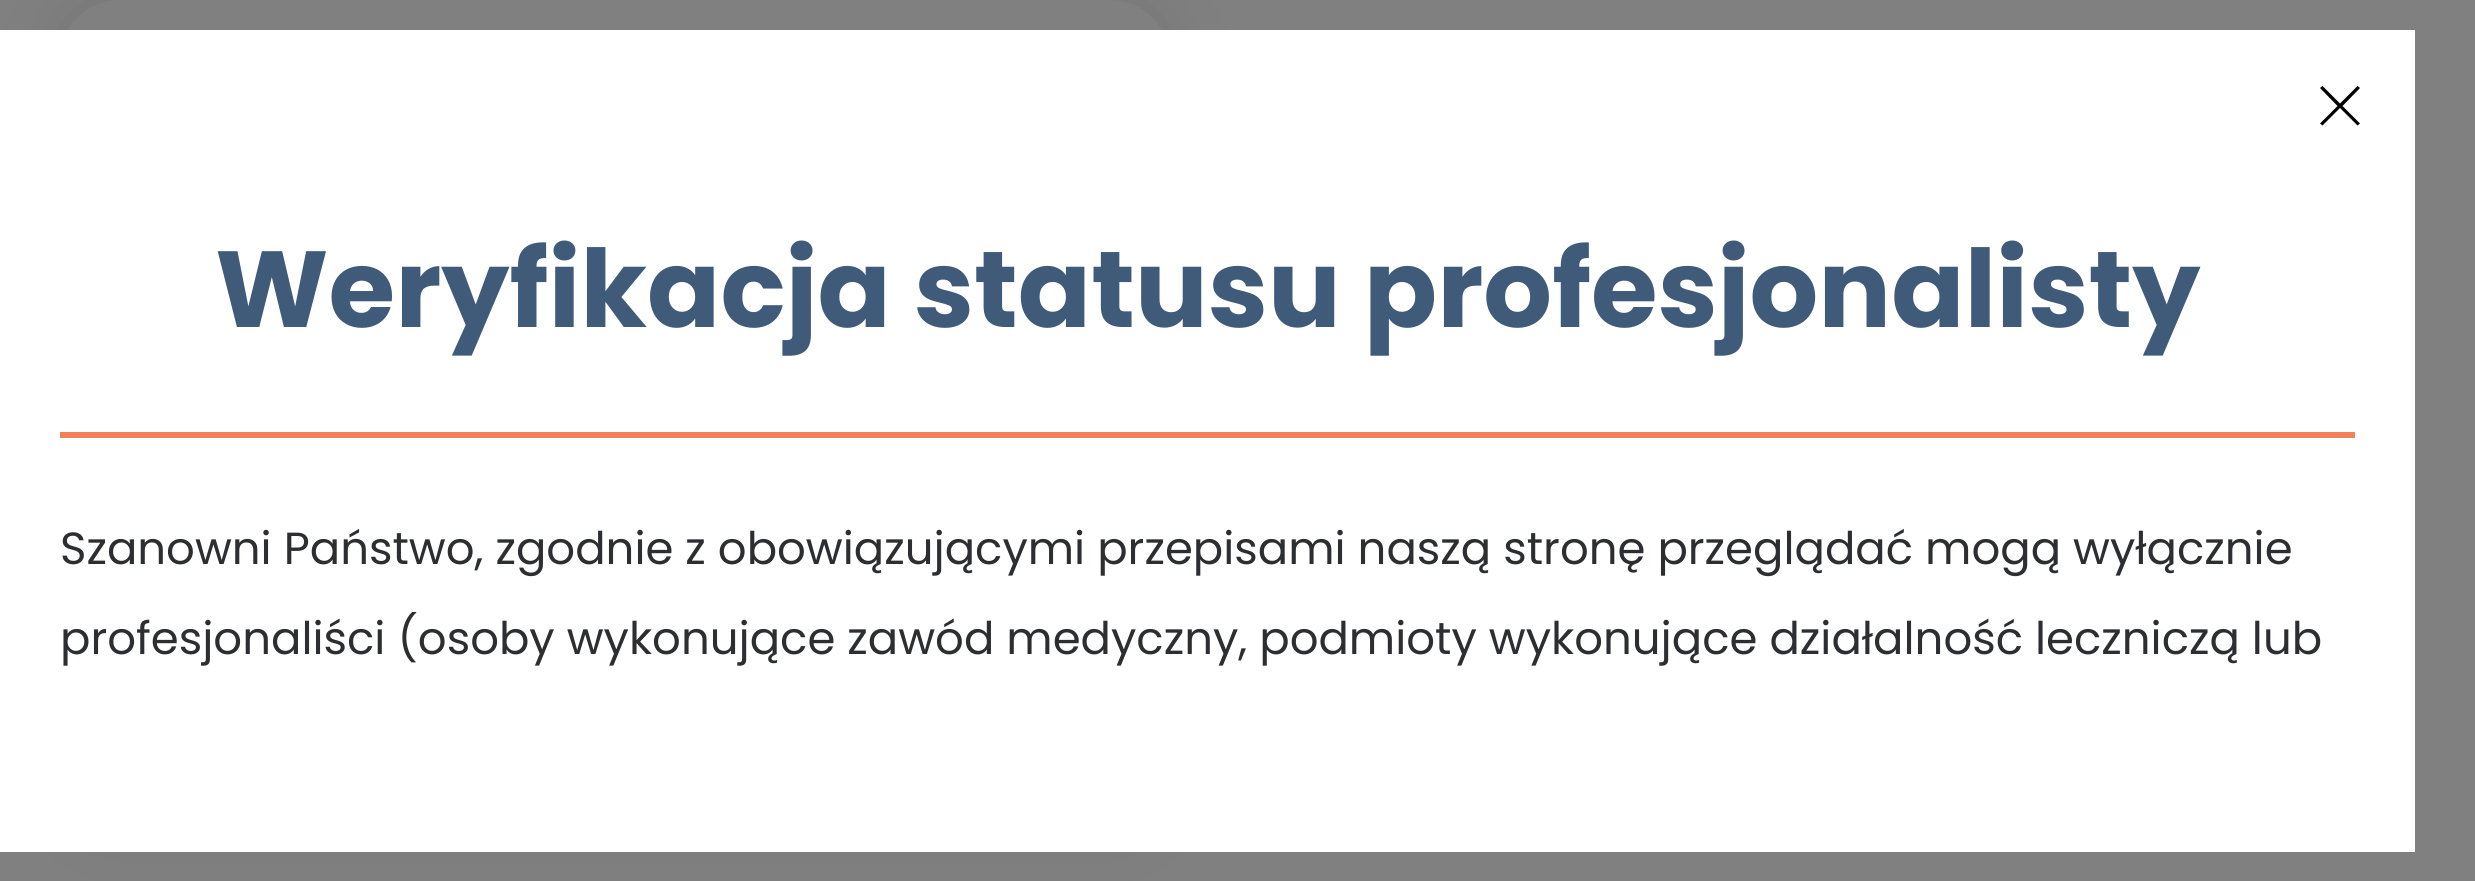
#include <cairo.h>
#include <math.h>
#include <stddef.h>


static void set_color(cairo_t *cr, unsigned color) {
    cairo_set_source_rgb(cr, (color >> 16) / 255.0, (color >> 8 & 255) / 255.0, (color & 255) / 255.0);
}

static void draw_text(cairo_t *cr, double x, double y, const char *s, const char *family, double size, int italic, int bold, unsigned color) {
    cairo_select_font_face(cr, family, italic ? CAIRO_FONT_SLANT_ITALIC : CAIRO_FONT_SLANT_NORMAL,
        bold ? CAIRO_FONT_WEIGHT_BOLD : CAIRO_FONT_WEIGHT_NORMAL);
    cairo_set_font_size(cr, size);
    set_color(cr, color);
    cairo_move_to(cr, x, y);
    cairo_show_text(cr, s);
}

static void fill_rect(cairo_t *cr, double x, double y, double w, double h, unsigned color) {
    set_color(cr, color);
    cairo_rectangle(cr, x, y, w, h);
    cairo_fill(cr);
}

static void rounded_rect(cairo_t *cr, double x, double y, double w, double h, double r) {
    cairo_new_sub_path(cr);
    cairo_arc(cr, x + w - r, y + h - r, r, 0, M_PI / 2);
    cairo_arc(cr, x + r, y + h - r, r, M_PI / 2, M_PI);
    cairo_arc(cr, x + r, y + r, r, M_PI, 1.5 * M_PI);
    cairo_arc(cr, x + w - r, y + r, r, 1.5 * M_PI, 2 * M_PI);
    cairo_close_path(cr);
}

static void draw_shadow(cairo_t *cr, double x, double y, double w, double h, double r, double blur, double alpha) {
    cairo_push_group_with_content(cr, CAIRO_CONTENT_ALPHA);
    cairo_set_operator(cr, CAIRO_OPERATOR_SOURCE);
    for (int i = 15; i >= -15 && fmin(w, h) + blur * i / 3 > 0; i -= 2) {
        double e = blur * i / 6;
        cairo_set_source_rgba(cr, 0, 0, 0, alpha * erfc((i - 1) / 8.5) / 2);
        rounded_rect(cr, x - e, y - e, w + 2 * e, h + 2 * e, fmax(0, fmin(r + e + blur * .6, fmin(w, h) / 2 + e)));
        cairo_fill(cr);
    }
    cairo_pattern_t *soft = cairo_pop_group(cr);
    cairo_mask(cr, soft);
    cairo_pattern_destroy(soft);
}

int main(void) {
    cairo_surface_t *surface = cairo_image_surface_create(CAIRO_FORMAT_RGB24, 2475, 881);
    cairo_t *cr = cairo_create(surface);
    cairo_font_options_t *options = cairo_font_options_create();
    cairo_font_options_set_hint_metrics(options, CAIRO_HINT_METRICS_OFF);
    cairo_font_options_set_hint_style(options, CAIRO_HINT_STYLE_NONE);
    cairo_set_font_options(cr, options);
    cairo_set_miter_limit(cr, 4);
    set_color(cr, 0x808080);
    cairo_paint(cr);
    set_color(cr, 0x000000);
    draw_shadow(cr, 60, 0, 1110, 822, 60, 36, 0.1);
    set_color(cr, 0x808080);
    rounded_rect(cr, 60, 0, 1110, 822, 60);
    cairo_fill(cr);
    fill_rect(cr, 0, 30, 2415, 822, 0xFFFFFF);
    set_color(cr, 0x000000);
    cairo_new_path(cr);
    cairo_move_to(cr, 2360, 88);
    cairo_line_to(cr, 2357.5, 86);
    cairo_line_to(cr, 2340, 103.5);
    cairo_line_to(cr, 2322.5, 86);
    cairo_line_to(cr, 2320, 88);
    cairo_line_to(cr, 2337.5, 106);
    cairo_line_to(cr, 2320, 123.5);
    cairo_line_to(cr, 2322.5, 125.5);
    cairo_line_to(cr, 2340, 108);
    cairo_line_to(cr, 2357.5, 125.5);
    cairo_line_to(cr, 2360, 123.5);
    cairo_line_to(cr, 2342.5, 106);
    cairo_close_path(cr);
    cairo_fill(cr);
    draw_text(cr, 215, 327, "Weryfikacja statusu profesjonalisty", "Poppins", 108, 0, 1, 0x405B7A);
    fill_rect(cr, 60, 432, 2295, 6, 0xF57F58);
    draw_text(cr, 60, 564, "Szanowni Państwo, zgodnie z obowiązującymi przepisami naszą stronę przeglądać mogą wyłącznie", "Poppins", 45, 0, 0, 0x2D2E32);
    draw_text(cr, 60, 654, "profesjonaliści (osoby wykonujące zawód medyczny, podmioty wykonujące działalność leczniczą lub", "Poppins", 45, 0, 0, 0x2D2E32);
    cairo_surface_write_to_png(surface, "output.png");
    cairo_font_options_destroy(options);
    cairo_destroy(cr);
    cairo_surface_destroy(surface);
    return 0;
}
